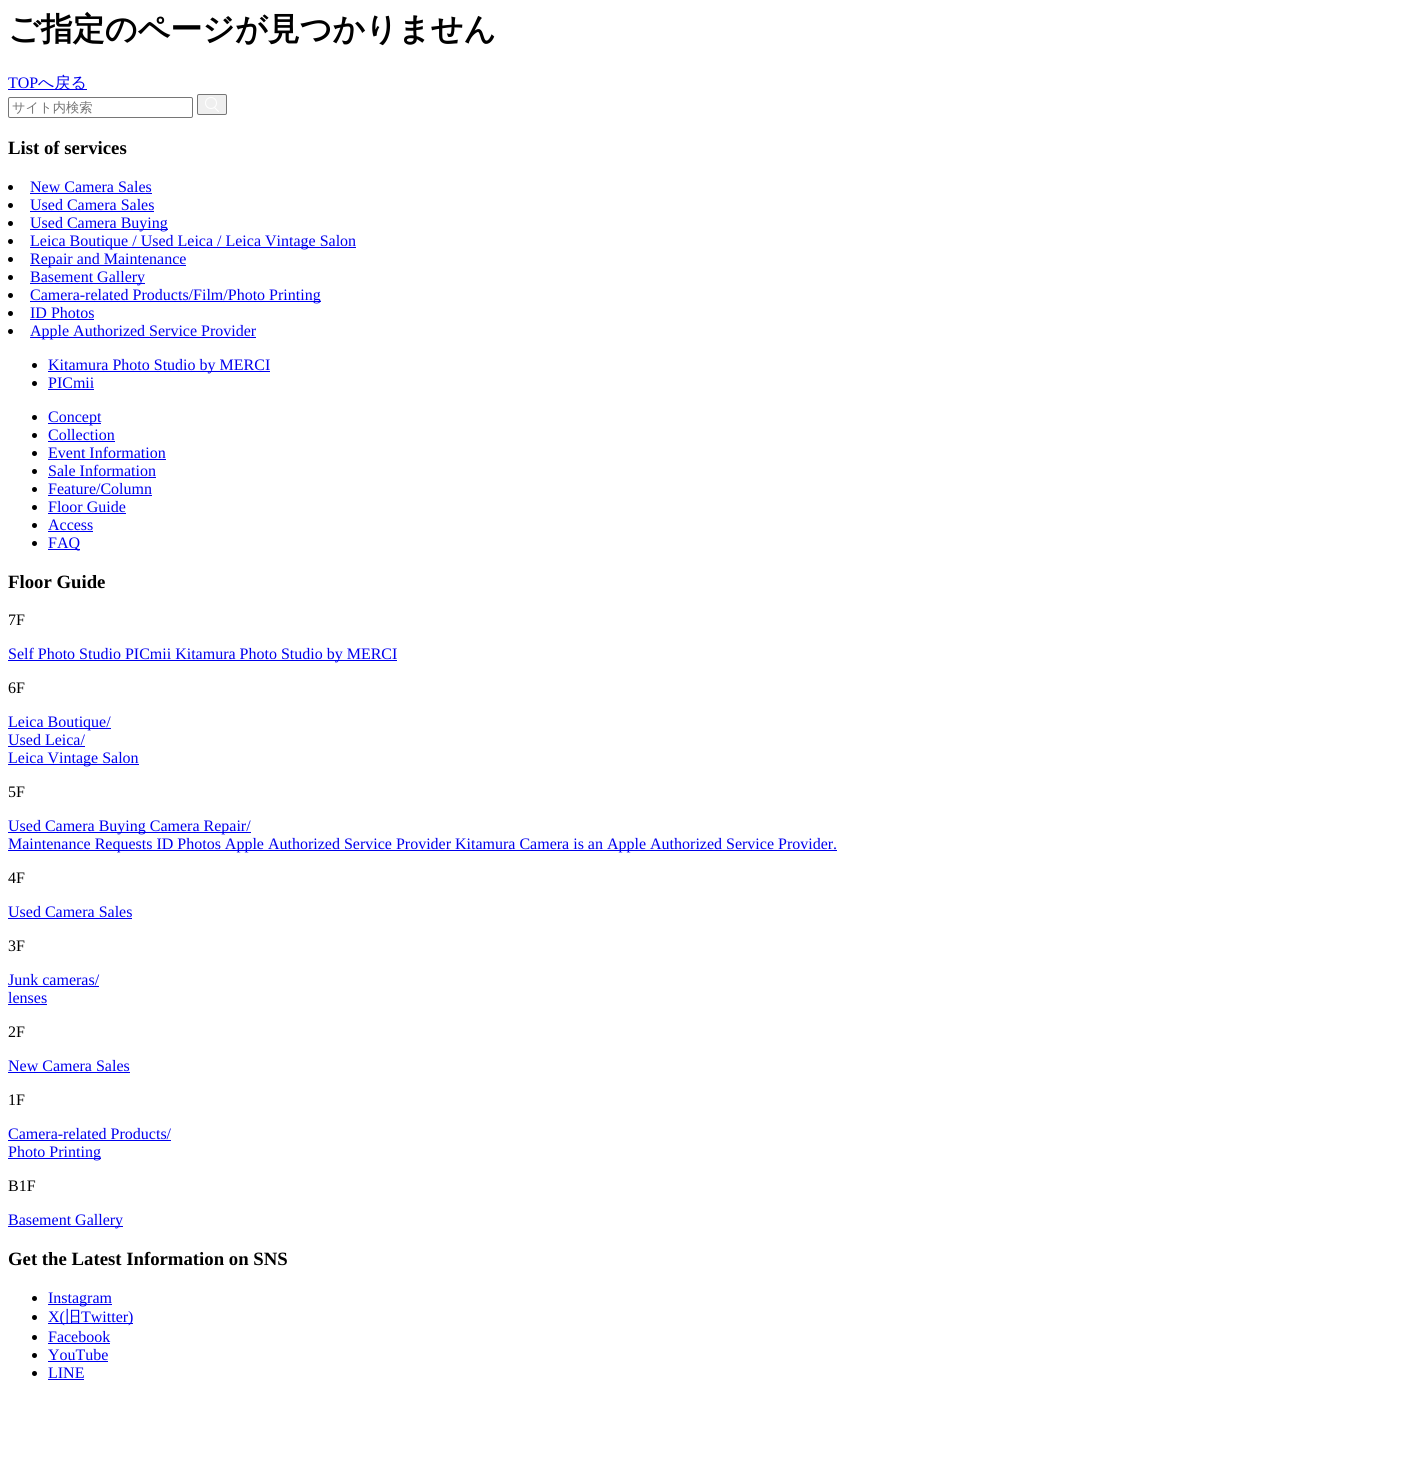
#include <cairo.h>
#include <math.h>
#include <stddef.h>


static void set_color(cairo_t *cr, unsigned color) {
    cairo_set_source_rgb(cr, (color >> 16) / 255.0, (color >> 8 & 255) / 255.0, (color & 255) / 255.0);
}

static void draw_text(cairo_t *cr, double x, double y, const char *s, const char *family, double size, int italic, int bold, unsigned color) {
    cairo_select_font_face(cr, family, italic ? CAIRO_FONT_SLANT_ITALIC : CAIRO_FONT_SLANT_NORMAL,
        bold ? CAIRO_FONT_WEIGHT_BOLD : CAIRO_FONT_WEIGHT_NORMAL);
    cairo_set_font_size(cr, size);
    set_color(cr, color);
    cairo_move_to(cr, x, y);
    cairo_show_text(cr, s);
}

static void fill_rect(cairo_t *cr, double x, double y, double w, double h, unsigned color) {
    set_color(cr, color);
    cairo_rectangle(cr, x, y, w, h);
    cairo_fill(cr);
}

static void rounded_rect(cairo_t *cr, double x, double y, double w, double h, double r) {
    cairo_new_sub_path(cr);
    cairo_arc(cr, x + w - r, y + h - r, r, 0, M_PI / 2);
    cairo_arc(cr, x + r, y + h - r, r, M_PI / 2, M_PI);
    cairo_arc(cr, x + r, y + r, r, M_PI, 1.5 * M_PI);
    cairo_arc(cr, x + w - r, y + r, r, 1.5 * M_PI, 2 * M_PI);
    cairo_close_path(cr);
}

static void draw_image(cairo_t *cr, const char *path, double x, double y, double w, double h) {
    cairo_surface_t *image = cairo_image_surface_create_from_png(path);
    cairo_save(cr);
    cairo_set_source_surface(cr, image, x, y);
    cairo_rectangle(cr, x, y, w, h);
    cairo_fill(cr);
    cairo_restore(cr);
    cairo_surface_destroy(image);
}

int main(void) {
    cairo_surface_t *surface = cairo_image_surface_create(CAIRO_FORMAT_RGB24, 1416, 1460);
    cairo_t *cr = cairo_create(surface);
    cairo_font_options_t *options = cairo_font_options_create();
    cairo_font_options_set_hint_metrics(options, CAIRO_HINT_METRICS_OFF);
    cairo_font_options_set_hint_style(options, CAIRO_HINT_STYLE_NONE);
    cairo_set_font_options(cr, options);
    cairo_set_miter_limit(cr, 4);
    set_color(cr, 0xFFFFFF);
    cairo_paint(cr);
    draw_text(cr, 8, 40, "ご指定のページが見つかりません", "WenQuanYi Zen Hei", 32, 0, 1, 0x000000);
    draw_text(cr, 8, 88, "TOP", "Liberation Serif", 16, 0, 0, 0x0000EE);
    fill_rect(cr, 8, 89, 79, 1, 0x0000EE);
    draw_text(cr, 38, 88, "へ戻る", "WenQuanYi Zen Hei Medium", 16, 0, 0, 0x0000EE);
    rounded_rect(cr, 8.5, 97.5, 184, 20, 1.5);
    set_color(cr, 0x767676);
    cairo_set_line_width(cr, 1);
    cairo_stroke(cr);
    draw_text(cr, 12, 112, "サイト内検索", "WenQuanYi Zen Hei Medium", 13.25, 0, 0, 0x757575);
    set_color(cr, 0xEFEFEF);
    rounded_rect(cr, 197.5, 94.5, 29, 20, 1.5);
    cairo_fill_preserve(cr);
    set_color(cr, 0x767676);
    cairo_stroke(cr);
    draw_image(cr, "assets/img1.png", 205, 97, 14, 15);
    draw_text(cr, 8, 154, "List of services", "Liberation Serif", 18.75, 0, 1, 0x000000);
    cairo_new_path(cr);
    cairo_arc(cr, 10.5, 187.5, 2.5, 0, 2 * M_PI);
    cairo_fill(cr);
    draw_text(cr, 30, 192, "New Camera Sales", "Liberation Serif", 16, 0, 0, 0x0000EE);
    fill_rect(cr, 30, 193, 122, 1, 0x0000EE);
    set_color(cr, 0x000000);
    cairo_new_path(cr);
    cairo_arc(cr, 10.5, 205.5, 2.5, 0, 2 * M_PI);
    cairo_fill(cr);
    draw_text(cr, 30, 210, "Used Camera Sales", "Liberation Serif", 16, 0, 0, 0x0000EE);
    fill_rect(cr, 30, 211, 124, 1, 0x0000EE);
    set_color(cr, 0x000000);
    cairo_new_path(cr);
    cairo_arc(cr, 10.5, 223.5, 2.5, 0, 2 * M_PI);
    cairo_fill(cr);
    fill_rect(cr, 30, 229, 138, 1, 0x0000EE);
    draw_text(cr, 30, 228, "Used Camera Buying", "Liberation Serif", 16, 0, 0, 0x0000EE);
    set_color(cr, 0x000000);
    cairo_new_path(cr);
    cairo_arc(cr, 10.5, 241.5, 2.5, 0, 2 * M_PI);
    cairo_fill(cr);
    fill_rect(cr, 30, 247, 326, 1, 0x0000EE);
    draw_text(cr, 30, 246, "Leica Boutique / Used Leica / Leica Vintage Salon", "Liberation Serif", 16, 0, 0, 0x0000EE);
    set_color(cr, 0x000000);
    cairo_new_path(cr);
    cairo_arc(cr, 10.5, 259.5, 2.5, 0, 2 * M_PI);
    cairo_fill(cr);
    fill_rect(cr, 30, 265, 156, 1, 0x0000EE);
    draw_text(cr, 30, 264, "Repair and Maintenance", "Liberation Serif", 16, 0, 0, 0x0000EE);
    set_color(cr, 0x000000);
    cairo_new_path(cr);
    cairo_arc(cr, 10.5, 277.5, 2.5, 0, 2 * M_PI);
    cairo_fill(cr);
    fill_rect(cr, 30, 283, 115, 1, 0x0000EE);
    draw_text(cr, 30, 282, "Basement Gallery", "Liberation Serif", 16, 0, 0, 0x0000EE);
    set_color(cr, 0x000000);
    cairo_new_path(cr);
    cairo_arc(cr, 10.5, 295.5, 2.5, 0, 2 * M_PI);
    cairo_fill(cr);
    fill_rect(cr, 30, 301, 291, 1, 0x0000EE);
    draw_text(cr, 30, 300, "Camera-related Products/Film/Photo Printing", "Liberation Serif", 16, 0, 0, 0x0000EE);
    set_color(cr, 0x000000);
    cairo_new_path(cr);
    cairo_arc(cr, 10.5, 313.5, 2.5, 0, 2 * M_PI);
    cairo_fill(cr);
    draw_text(cr, 30, 318, "ID Photos", "Liberation Serif", 16, 0, 0, 0x0000EE);
    fill_rect(cr, 30, 319, 64, 1, 0x0000EE);
    set_color(cr, 0x000000);
    cairo_new_path(cr);
    cairo_arc(cr, 10.5, 331.5, 2.5, 0, 2 * M_PI);
    cairo_fill(cr);
    fill_rect(cr, 30, 337, 226, 1, 0x0000EE);
    draw_text(cr, 30, 336, "Apple Authorized Service Provider", "Liberation Serif", 16, 0, 0, 0x0000EE);
    set_color(cr, 0x000000);
    cairo_new_path(cr);
    cairo_arc(cr, 34.5, 365.5, 2.5, 0, 2 * M_PI);
    cairo_fill(cr);
    fill_rect(cr, 48, 371, 222, 1, 0x0000EE);
    draw_text(cr, 48, 370, "Kitamura Photo Studio by MERCI", "Liberation Serif", 16, 0, 0, 0x0000EE);
    set_color(cr, 0x000000);
    cairo_new_path(cr);
    cairo_arc(cr, 34.5, 383.5, 2.5, 0, 2 * M_PI);
    cairo_fill(cr);
    draw_text(cr, 48, 388, "PICmii", "Liberation Serif", 16, 0, 0, 0x0000EE);
    fill_rect(cr, 48, 389, 46, 1, 0x0000EE);
    set_color(cr, 0x000000);
    cairo_new_path(cr);
    cairo_arc(cr, 34.5, 417.5, 2.5, 0, 2 * M_PI);
    cairo_fill(cr);
    fill_rect(cr, 48, 423, 53, 1, 0x0000EE);
    draw_text(cr, 48, 422, "Concept", "Liberation Serif", 16, 0, 0, 0x0000EE);
    set_color(cr, 0x000000);
    cairo_new_path(cr);
    cairo_arc(cr, 34.5, 435.5, 2.5, 0, 2 * M_PI);
    cairo_fill(cr);
    draw_text(cr, 48, 440, "Collection", "Liberation Serif", 16, 0, 0, 0x0000EE);
    fill_rect(cr, 48, 441, 67, 1, 0x0000EE);
    set_color(cr, 0x000000);
    cairo_new_path(cr);
    cairo_arc(cr, 34.5, 453.5, 2.5, 0, 2 * M_PI);
    cairo_fill(cr);
    draw_text(cr, 48, 458, "Event Information", "Liberation Serif", 16, 0, 0, 0x0000EE);
    fill_rect(cr, 48, 459, 118, 1, 0x0000EE);
    set_color(cr, 0x000000);
    cairo_new_path(cr);
    cairo_arc(cr, 34.5, 471.5, 2.5, 0, 2 * M_PI);
    cairo_fill(cr);
    draw_text(cr, 48, 476, "Sale Information", "Liberation Serif", 16, 0, 0, 0x0000EE);
    fill_rect(cr, 48, 477, 108, 1, 0x0000EE);
    set_color(cr, 0x000000);
    cairo_new_path(cr);
    cairo_arc(cr, 34.5, 489.5, 2.5, 0, 2 * M_PI);
    cairo_fill(cr);
    draw_text(cr, 48, 494, "Feature/Column", "Liberation Serif", 16, 0, 0, 0x0000EE);
    fill_rect(cr, 48, 495, 104, 1, 0x0000EE);
    set_color(cr, 0x000000);
    cairo_new_path(cr);
    cairo_arc(cr, 34.5, 507.5, 2.5, 0, 2 * M_PI);
    cairo_fill(cr);
    draw_text(cr, 48, 512, "Floor Guide", "Liberation Serif", 16, 0, 0, 0x0000EE);
    fill_rect(cr, 48, 513, 78, 1, 0x0000EE);
    set_color(cr, 0x000000);
    cairo_new_path(cr);
    cairo_arc(cr, 34.5, 525.5, 2.5, 0, 2 * M_PI);
    cairo_fill(cr);
    draw_text(cr, 48, 530, "Access", "Liberation Serif", 16, 0, 0, 0x0000EE);
    fill_rect(cr, 48, 531, 45, 1, 0x0000EE);
    set_color(cr, 0x000000);
    cairo_new_path(cr);
    cairo_arc(cr, 34.5, 543.5, 2.5, 0, 2 * M_PI);
    cairo_fill(cr);
    fill_rect(cr, 48, 549, 32, 1, 0x0000EE);
    draw_text(cr, 48, 548, "FAQ", "Liberation Serif", 16, 0, 0, 0x0000EE);
    draw_text(cr, 8, 588, "Floor Guide", "Liberation Serif", 18.75, 0, 1, 0x000000);
    draw_text(cr, 8, 625, "7F", "Liberation Serif", 16, 0, 0, 0x000000);
    fill_rect(cr, 8, 660, 389, 1, 0x0000EE);
    draw_text(cr, 8, 659, "Self Photo Studio PICmii Kitamura Photo Studio by MERCI", "Liberation Serif", 16, 0, 0, 0x0000EE);
    draw_text(cr, 8, 693, "6F", "Liberation Serif", 16, 0, 0, 0x000000);
    fill_rect(cr, 8, 728, 103, 1, 0x0000EE);
    draw_text(cr, 8, 727, "Leica Boutique/", "Liberation Serif", 16, 0, 0, 0x0000EE);
    draw_text(cr, 8, 745, "Used Leica/", "Liberation Serif", 16, 0, 0, 0x0000EE);
    fill_rect(cr, 8, 746, 77, 1, 0x0000EE);
    fill_rect(cr, 8, 764, 131, 1, 0x0000EE);
    draw_text(cr, 8, 763, "Leica Vintage Salon", "Liberation Serif", 16, 0, 0, 0x0000EE);
    draw_text(cr, 8, 797, "5F", "Liberation Serif", 16, 0, 0, 0x000000);
    fill_rect(cr, 8, 832, 243, 1, 0x0000EE);
    draw_text(cr, 8, 831, "Used Camera Buying Camera Repair/", "Liberation Serif", 16, 0, 0, 0x0000EE);
    fill_rect(cr, 8, 850, 829, 1, 0x0000EE);
    draw_text(cr, 8, 849, "Maintenance Requests ID Photos Apple Authorized Service Provider Kitamura Camera is an Apple Authorized Service Provider.", "Liberation Serif", 16, 0, 0, 0x0000EE);
    draw_text(cr, 8, 883, "4F", "Liberation Serif", 16, 0, 0, 0x000000);
    draw_text(cr, 8, 917, "Used Camera Sales", "Liberation Serif", 16, 0, 0, 0x0000EE);
    fill_rect(cr, 8, 918, 124, 1, 0x0000EE);
    draw_text(cr, 8, 951, "3F", "Liberation Serif", 16, 0, 0, 0x000000);
    draw_text(cr, 8, 985, "Junk cameras/", "Liberation Serif", 16, 0, 0, 0x0000EE);
    fill_rect(cr, 8, 986, 91, 1, 0x0000EE);
    draw_text(cr, 8, 1003, "lenses", "Liberation Serif", 16, 0, 0, 0x0000EE);
    fill_rect(cr, 8, 1004, 39, 1, 0x0000EE);
    draw_text(cr, 8, 1037, "2F", "Liberation Serif", 16, 0, 0, 0x000000);
    draw_text(cr, 8, 1071, "New Camera Sales", "Liberation Serif", 16, 0, 0, 0x0000EE);
    fill_rect(cr, 8, 1072, 122, 1, 0x0000EE);
    draw_text(cr, 8, 1105, "1F", "Liberation Serif", 16, 0, 0, 0x000000);
    draw_text(cr, 8, 1139, "Camera-related Products/", "Liberation Serif", 16, 0, 0, 0x0000EE);
    fill_rect(cr, 8, 1140, 163, 1, 0x0000EE);
    fill_rect(cr, 8, 1158, 93, 1, 0x0000EE);
    draw_text(cr, 8, 1157, "Photo Printing", "Liberation Serif", 16, 0, 0, 0x0000EE);
    draw_text(cr, 8, 1191, "B1F", "Liberation Serif", 16, 0, 0, 0x000000);
    fill_rect(cr, 8, 1226, 115, 1, 0x0000EE);
    draw_text(cr, 8, 1225, "Basement Gallery", "Liberation Serif", 16, 0, 0, 0x0000EE);
    draw_text(cr, 8, 1265, "Get the Latest Information on SNS", "Liberation Serif", 18.75, 0, 1, 0x000000);
    cairo_new_path(cr);
    cairo_arc(cr, 34.5, 1298.5, 2.5, 0, 2 * M_PI);
    cairo_fill(cr);
    fill_rect(cr, 48, 1304, 64, 1, 0x0000EE);
    draw_text(cr, 48, 1303, "Instagram", "Liberation Serif", 16, 0, 0, 0x0000EE);
    set_color(cr, 0x000000);
    cairo_new_path(cr);
    cairo_arc(cr, 34.5, 1317.5, 2.5, 0, 2 * M_PI);
    cairo_fill(cr);
    fill_rect(cr, 48, 1323, 85, 1, 0x0000EE);
    draw_text(cr, 48, 1322, "X(", "Liberation Serif", 16, 0, 0, 0x0000EE);
    draw_text(cr, 65, 1322, "旧", "WenQuanYi Zen Hei Medium", 16, 0, 0, 0x0000EE);
    draw_text(cr, 81, 1322, "Twitter)", "Liberation Serif", 16, 0, 0, 0x0000EE);
    set_color(cr, 0x000000);
    cairo_new_path(cr);
    cairo_arc(cr, 34.5, 1337.5, 2.5, 0, 2 * M_PI);
    cairo_fill(cr);
    draw_text(cr, 48, 1342, "Facebook", "Liberation Serif", 16, 0, 0, 0x0000EE);
    fill_rect(cr, 48, 1343, 62, 1, 0x0000EE);
    set_color(cr, 0x000000);
    cairo_new_path(cr);
    cairo_arc(cr, 34.5, 1355.5, 2.5, 0, 2 * M_PI);
    cairo_fill(cr);
    draw_text(cr, 48, 1360, "YouTube", "Liberation Serif", 16, 0, 0, 0x0000EE);
    fill_rect(cr, 48, 1361, 60, 1, 0x0000EE);
    set_color(cr, 0x000000);
    cairo_new_path(cr);
    cairo_arc(cr, 34.5, 1373.5, 2.5, 0, 2 * M_PI);
    cairo_fill(cr);
    draw_text(cr, 48, 1378, "LINE", "Liberation Serif", 16, 0, 0, 0x0000EE);
    fill_rect(cr, 48, 1379, 36, 1, 0x0000EE);
    cairo_surface_write_to_png(surface, "output.png");
    cairo_font_options_destroy(options);
    cairo_destroy(cr);
    cairo_surface_destroy(surface);
    return 0;
}
